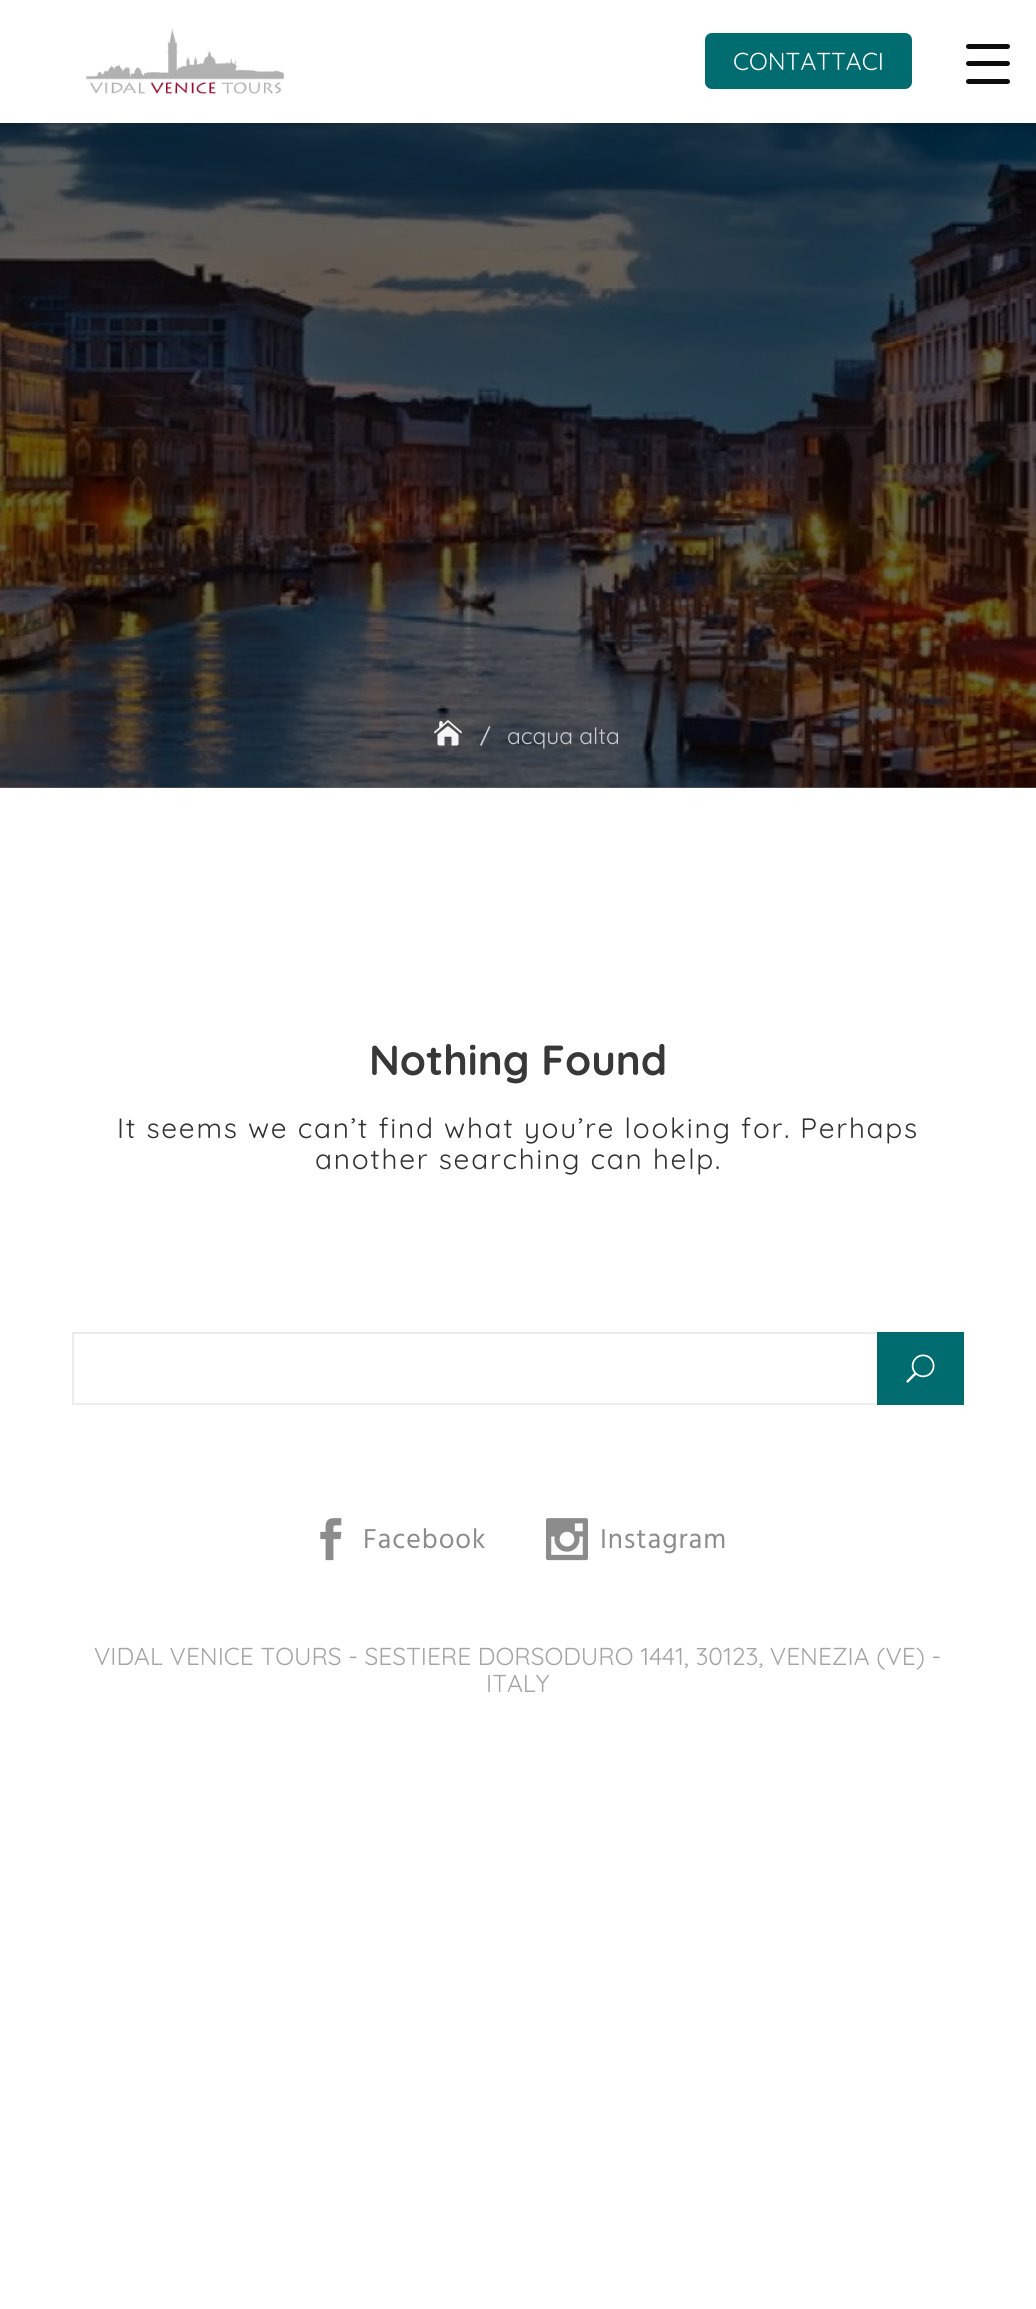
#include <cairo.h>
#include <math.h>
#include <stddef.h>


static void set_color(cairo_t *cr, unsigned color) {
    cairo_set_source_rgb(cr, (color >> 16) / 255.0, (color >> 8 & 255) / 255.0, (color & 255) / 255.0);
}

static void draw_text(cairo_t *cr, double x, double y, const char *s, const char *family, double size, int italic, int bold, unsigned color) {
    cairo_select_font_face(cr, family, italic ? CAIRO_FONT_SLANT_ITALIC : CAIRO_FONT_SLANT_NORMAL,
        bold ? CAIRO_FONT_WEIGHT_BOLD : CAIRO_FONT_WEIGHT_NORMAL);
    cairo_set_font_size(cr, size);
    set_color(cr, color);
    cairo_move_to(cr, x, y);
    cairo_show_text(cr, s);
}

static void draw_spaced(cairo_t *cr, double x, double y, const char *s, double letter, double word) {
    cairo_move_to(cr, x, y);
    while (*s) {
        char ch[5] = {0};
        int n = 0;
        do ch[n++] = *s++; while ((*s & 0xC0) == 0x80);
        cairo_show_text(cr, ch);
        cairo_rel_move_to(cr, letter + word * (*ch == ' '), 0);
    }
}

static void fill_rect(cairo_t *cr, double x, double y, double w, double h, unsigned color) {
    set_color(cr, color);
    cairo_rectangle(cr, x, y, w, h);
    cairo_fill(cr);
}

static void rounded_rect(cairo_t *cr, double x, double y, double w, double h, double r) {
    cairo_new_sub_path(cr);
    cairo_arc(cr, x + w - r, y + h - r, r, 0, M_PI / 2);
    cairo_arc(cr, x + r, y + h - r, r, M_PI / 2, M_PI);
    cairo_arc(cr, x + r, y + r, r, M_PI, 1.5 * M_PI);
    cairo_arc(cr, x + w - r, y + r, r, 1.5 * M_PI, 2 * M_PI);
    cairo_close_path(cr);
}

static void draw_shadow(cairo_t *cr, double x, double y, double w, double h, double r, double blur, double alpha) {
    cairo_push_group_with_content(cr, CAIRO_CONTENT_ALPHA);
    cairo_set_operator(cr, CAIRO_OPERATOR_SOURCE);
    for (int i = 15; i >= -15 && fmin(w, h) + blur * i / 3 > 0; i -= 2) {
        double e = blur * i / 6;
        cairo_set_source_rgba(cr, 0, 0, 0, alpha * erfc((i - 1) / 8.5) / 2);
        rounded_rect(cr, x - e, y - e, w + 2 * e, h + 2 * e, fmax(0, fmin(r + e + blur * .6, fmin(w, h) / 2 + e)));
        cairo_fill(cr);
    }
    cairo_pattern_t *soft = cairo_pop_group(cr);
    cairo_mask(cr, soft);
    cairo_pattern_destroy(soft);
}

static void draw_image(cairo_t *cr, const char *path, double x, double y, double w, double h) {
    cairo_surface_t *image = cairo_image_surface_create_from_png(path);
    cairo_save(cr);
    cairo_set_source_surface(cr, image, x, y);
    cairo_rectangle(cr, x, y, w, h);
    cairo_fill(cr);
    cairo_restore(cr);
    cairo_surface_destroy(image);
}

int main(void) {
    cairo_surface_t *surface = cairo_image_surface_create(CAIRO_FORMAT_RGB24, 1036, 2309);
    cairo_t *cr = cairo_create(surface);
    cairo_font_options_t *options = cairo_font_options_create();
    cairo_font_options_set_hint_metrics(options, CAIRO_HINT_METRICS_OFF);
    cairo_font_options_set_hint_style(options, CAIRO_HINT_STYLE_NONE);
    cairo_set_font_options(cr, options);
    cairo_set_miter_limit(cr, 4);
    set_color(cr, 0xFFFFFF);
    cairo_paint(cr);
    fill_rect(cr, 0, 787, 1036, 1, 0x666666);
    draw_image(cr, "assets/img2.png", 0, 123, 1036, 665);
    set_color(cr, 0x000000);
    draw_shadow(cr, 0, 4, 1036, 122, 0, 4.5, 0.1);
    fill_rect(cr, 0, 0, 1036, 123, 0xFFFFFF);
    draw_image(cr, "assets/img1.png", 86, 27, 198, 69);
    set_color(cr, 0x006C70);
    rounded_rect(cr, 706, 34, 205, 54, 6);
    cairo_fill_preserve(cr);
    cairo_stroke(cr);
    draw_text(cr, 733, 70, "CONTATTACI", "Quicksand", 24.5, 0, 0, 0xFFFFFF);
    draw_image(cr, "assets/img3.png", 434, 720, 28, 26);
    set_color(cr, 0xCCCCCC);
    cairo_new_path(cr);
    cairo_move_to(cr, 489, 726);
    cairo_line_to(cr, 490.5, 726.5);
    cairo_line_to(cr, 481.5, 746);
    cairo_line_to(cr, 480, 745);
    cairo_close_path(cr);
    cairo_fill(cr);
    draw_text(cr, 507, 744, "acqua alta", "Quicksand", 22.75, 0, 0, 0xCACACA);
    draw_text(cr, 369, 1075, "Nothing Found", "Quicksand", 42, 0, 1, 0x383838);
    cairo_select_font_face(cr, "Quicksand", CAIRO_FONT_SLANT_NORMAL, CAIRO_FONT_WEIGHT_NORMAL);
    cairo_set_font_size(cr, 28);
    set_color(cr, 0x313131);
    draw_spaced(cr, 117, 1138, "It seems we can’t find what you’re looking for. Perhaps", 1.75, 0);
    draw_spaced(cr, 315, 1169, "another searching can help.", 1.75, 0);
    cairo_rectangle(cr, 73, 1333, 890, 71);
    set_color(cr, 0xECECEC);
    cairo_stroke(cr);
    fill_rect(cr, 877, 1332, 87, 73, 0x006C70);
    draw_image(cr, "assets/img4.png", 906, 1354, 29, 29);
    draw_image(cr, "assets/img5.png", 320, 1518, 22, 43);
    cairo_select_font_face(cr, "Hind", CAIRO_FONT_SLANT_NORMAL, CAIRO_FONT_WEIGHT_NORMAL);
    set_color(cr, 0x8C8C8C);
    draw_spaced(cr, 363, 1548, "Facebook", 0.9, 0);
    draw_image(cr, "assets/img6.png", 546, 1518, 42, 43);
    draw_spaced(cr, 600, 1548, "Instagram", 0.9, 0);
    draw_text(cr, 94, 1665, "VIDAL VENICE TOURS - SESTIERE DORSODURO 1441, 30123, VENEZIA (VE) -", "Quicksand", 24.5, 0, 0, 0xA4A4A4);
    draw_text(cr, 486, 1692, "ITALY", "Quicksand", 24.5, 0, 0, 0xA4A4A4);
    set_color(cr, 0x0C0C0C);
    rounded_rect(cr, 966, 61, 44, 5, 2.5);
    cairo_fill(cr);
    rounded_rect(cr, 966, 44, 44, 5, 2.5);
    cairo_fill(cr);
    rounded_rect(cr, 966, 79, 44, 5, 2.5);
    cairo_fill(cr);
    cairo_surface_write_to_png(surface, "output.png");
    cairo_font_options_destroy(options);
    cairo_destroy(cr);
    cairo_surface_destroy(surface);
    return 0;
}
